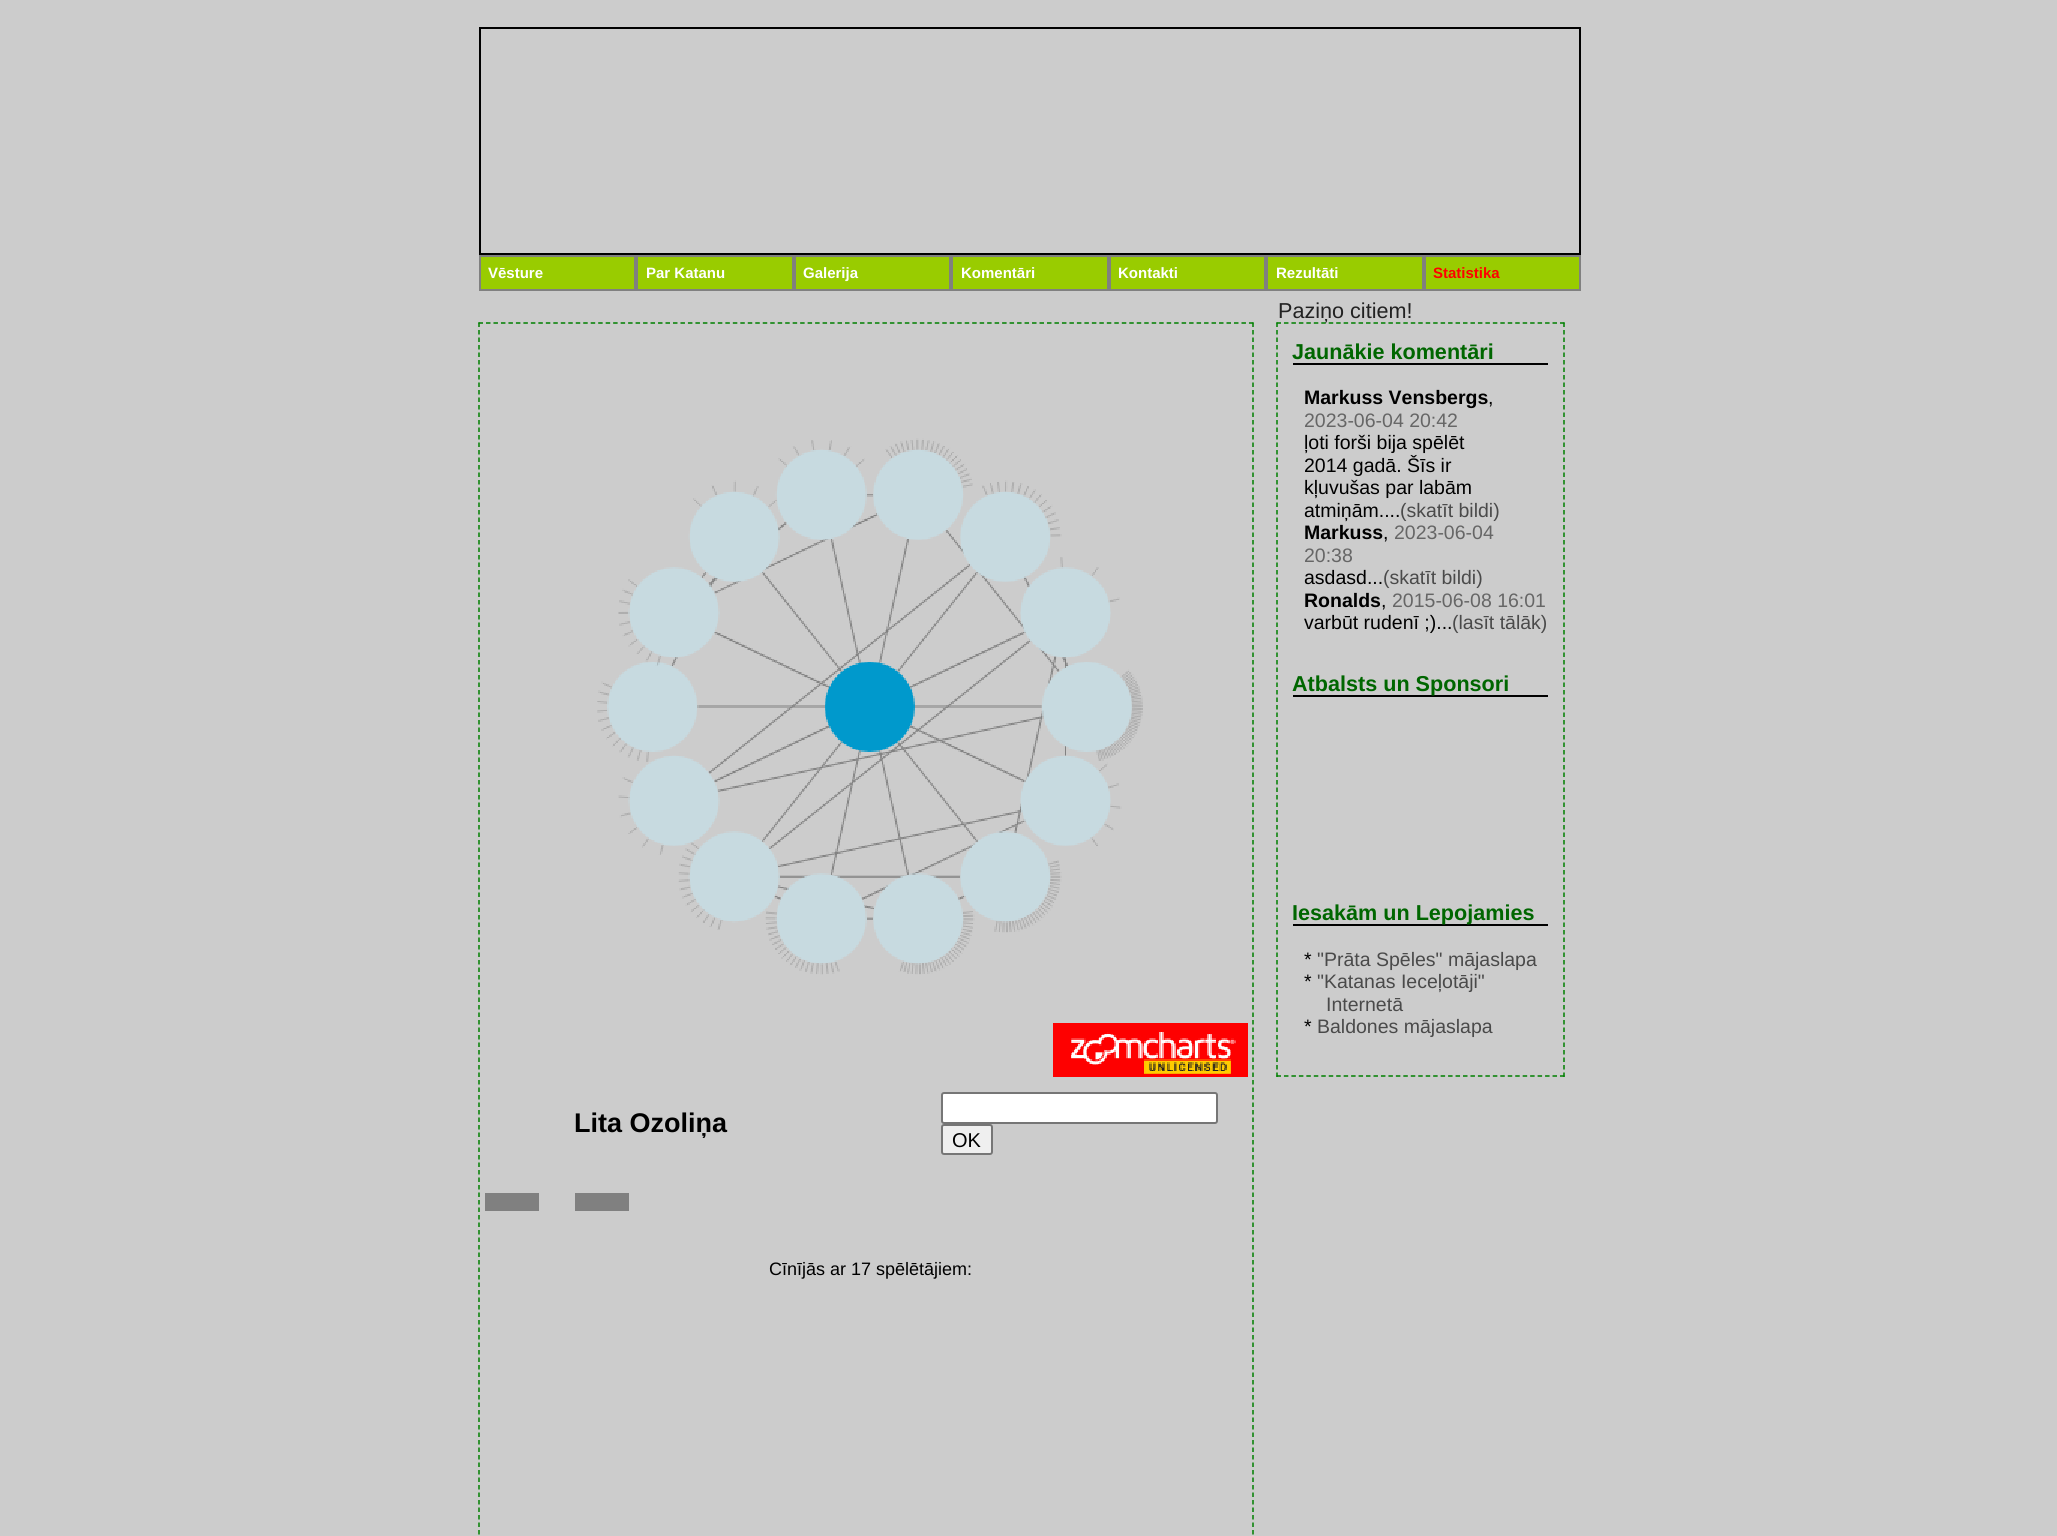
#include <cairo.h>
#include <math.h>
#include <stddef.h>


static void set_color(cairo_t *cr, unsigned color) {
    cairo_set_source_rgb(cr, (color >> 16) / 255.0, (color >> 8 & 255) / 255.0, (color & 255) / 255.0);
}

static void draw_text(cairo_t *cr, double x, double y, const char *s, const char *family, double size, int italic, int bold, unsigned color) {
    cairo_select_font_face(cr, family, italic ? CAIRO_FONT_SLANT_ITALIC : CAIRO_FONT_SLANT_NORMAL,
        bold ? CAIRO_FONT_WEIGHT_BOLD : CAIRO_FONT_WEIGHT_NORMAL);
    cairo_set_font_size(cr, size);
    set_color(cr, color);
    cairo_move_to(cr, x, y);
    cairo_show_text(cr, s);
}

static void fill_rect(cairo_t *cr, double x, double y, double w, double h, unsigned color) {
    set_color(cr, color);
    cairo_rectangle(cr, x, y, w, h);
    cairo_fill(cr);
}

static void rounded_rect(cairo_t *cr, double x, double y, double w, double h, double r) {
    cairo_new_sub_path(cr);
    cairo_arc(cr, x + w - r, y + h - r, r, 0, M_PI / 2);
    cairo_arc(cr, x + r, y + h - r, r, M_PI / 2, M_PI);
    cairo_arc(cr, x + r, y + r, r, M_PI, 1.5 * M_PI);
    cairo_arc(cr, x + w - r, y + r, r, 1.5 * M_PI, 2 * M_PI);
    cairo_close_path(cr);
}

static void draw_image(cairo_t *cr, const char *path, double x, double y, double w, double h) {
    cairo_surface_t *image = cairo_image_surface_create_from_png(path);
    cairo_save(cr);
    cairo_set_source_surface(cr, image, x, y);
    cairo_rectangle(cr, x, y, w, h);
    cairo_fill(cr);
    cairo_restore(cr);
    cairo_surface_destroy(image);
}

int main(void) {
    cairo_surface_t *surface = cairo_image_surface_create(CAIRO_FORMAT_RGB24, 2057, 1536);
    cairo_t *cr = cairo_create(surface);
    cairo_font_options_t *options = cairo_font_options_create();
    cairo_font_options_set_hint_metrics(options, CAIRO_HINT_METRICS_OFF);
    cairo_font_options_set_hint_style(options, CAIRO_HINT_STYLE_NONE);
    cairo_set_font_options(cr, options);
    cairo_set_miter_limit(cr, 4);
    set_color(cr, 0xCCCCCC);
    cairo_paint(cr);
    cairo_rectangle(cr, 480, 28, 1100, 226);
    set_color(cr, 0x000000);
    cairo_stroke(cr);
    set_color(cr, 0x99CC00);
    cairo_rectangle(cr, 480, 256, 155, 34);
    cairo_fill_preserve(cr);
    set_color(cr, 0x808080);
    cairo_stroke(cr);
    draw_text(cr, 488, 278, "Vēsture", "Liberation Sans", 15, 0, 1, 0xFFFFFF);
    set_color(cr, 0x99CC00);
    cairo_rectangle(cr, 637, 256, 156, 34);
    cairo_fill_preserve(cr);
    set_color(cr, 0x808080);
    cairo_stroke(cr);
    draw_text(cr, 646, 278, "Par Katanu", "Liberation Sans", 15, 0, 1, 0xFFFFFF);
    set_color(cr, 0x99CC00);
    cairo_rectangle(cr, 795, 256, 155, 34);
    cairo_fill_preserve(cr);
    set_color(cr, 0x808080);
    cairo_stroke(cr);
    draw_text(cr, 803, 278, "Galerija", "Liberation Sans", 15, 0, 1, 0xFFFFFF);
    set_color(cr, 0x99CC00);
    cairo_rectangle(cr, 952, 256, 156, 34);
    cairo_fill_preserve(cr);
    set_color(cr, 0x808080);
    cairo_stroke(cr);
    draw_text(cr, 961, 278, "Komentāri", "Liberation Sans", 15, 0, 1, 0xFFFFFF);
    set_color(cr, 0x99CC00);
    cairo_rectangle(cr, 1110, 256, 155, 34);
    cairo_fill_preserve(cr);
    set_color(cr, 0x808080);
    cairo_stroke(cr);
    draw_text(cr, 1118, 278, "Kontakti", "Liberation Sans", 15, 0, 1, 0xFFFFFF);
    set_color(cr, 0x99CC00);
    cairo_rectangle(cr, 1267, 256, 156, 34);
    cairo_fill_preserve(cr);
    set_color(cr, 0x808080);
    cairo_stroke(cr);
    draw_text(cr, 1276, 278, "Rezultāti", "Liberation Sans", 15, 0, 1, 0xFFFFFF);
    set_color(cr, 0x99CC00);
    cairo_rectangle(cr, 1425, 256, 155, 34);
    cairo_fill_preserve(cr);
    set_color(cr, 0x808080);
    cairo_stroke(cr);
    draw_text(cr, 1433, 278, "Statistika", "Liberation Sans", 15, 0, 1, 0xFF0000);
    cairo_new_path(cr);
    cairo_move_to(cr, 1276.5, 323);
    cairo_line_to(cr, 1564.5, 323);
    set_color(cr, 0x008000);
    cairo_set_line_width(cr, 1.5);
    cairo_set_dash(cr, (double[]){4.5, 2.96}, 2, 0);
    cairo_stroke(cr);
    draw_text(cr, 1278, 318, "Paziņo citiem!", "Liberation Sans", 21.6, 0, 0, 0x222222);
    cairo_new_path(cr);
    cairo_move_to(cr, 1564, 322.5);
    cairo_line_to(cr, 1564, 1077);
    set_color(cr, 0x008000);
    cairo_set_dash(cr, (double[]){4.5, 3}, 2, 0);
    cairo_stroke(cr);
    cairo_new_path(cr);
    cairo_move_to(cr, 1276.5, 1076);
    cairo_line_to(cr, 1564.5, 1076);
    cairo_set_dash(cr, (double[]){4.5, 2.96}, 2, 0);
    cairo_stroke(cr);
    cairo_new_path(cr);
    cairo_move_to(cr, 1277, 322.5);
    cairo_line_to(cr, 1277, 1077);
    cairo_set_dash(cr, (double[]){4.5, 3}, 2, 0);
    cairo_stroke(cr);
    fill_rect(cr, 1293, 363, 255, 2, 0x000000);
    draw_text(cr, 1292, 359, "Jaunākie komentāri", "Liberation Sans", 21.6, 0, 1, 0x006600);
    draw_text(cr, 1304, 404, "Markuss Vensbergs", "Liberation Sans", 19.5, 0, 1, 0x000000);
    draw_text(cr, 1488, 404, ",", "Liberation Sans", 19.5, 0, 0, 0x000000);
    draw_text(cr, 1304, 427, "2023-06-04 20:42", "Liberation Sans", 19.5, 0, 0, 0x666666);
    draw_text(cr, 1304, 449, "ļoti forši bija spēlēt", "Liberation Sans", 19.5, 0, 0, 0x000000);
    draw_text(cr, 1304, 472, "2014 gadā. Šīs ir", "Liberation Sans", 19.5, 0, 0, 0x000000);
    draw_text(cr, 1304, 494, "kļuvušas par labām", "Liberation Sans", 19.5, 0, 0, 0x000000);
    draw_text(cr, 1304, 517, "atmiņām....", "Liberation Sans", 19.5, 0, 0, 0x000000);
    draw_text(cr, 1400, 517, "(skatīt bildi)", "Liberation Sans", 19.5, 0, 0, 0x4A4A4A);
    draw_text(cr, 1304, 539, "Markuss", "Liberation Sans", 19.5, 0, 1, 0x000000);
    draw_text(cr, 1383, 539, ",", "Liberation Sans", 19.5, 0, 0, 0x000000);
    draw_text(cr, 1394, 539, "2023-06-04", "Liberation Sans", 19.5, 0, 0, 0x666666);
    draw_text(cr, 1304, 562, "20:38", "Liberation Sans", 19.5, 0, 0, 0x666666);
    draw_text(cr, 1304, 584, "asdasd...", "Liberation Sans", 19.5, 0, 0, 0x000000);
    draw_text(cr, 1383, 584, "(skatīt bildi)", "Liberation Sans", 19.5, 0, 0, 0x4A4A4A);
    draw_text(cr, 1304, 607, "Ronalds", "Liberation Sans", 19.5, 0, 1, 0x000000);
    draw_text(cr, 1381, 607, ",", "Liberation Sans", 19.5, 0, 0, 0x000000);
    draw_text(cr, 1392, 607, "2015-06-08 16:01", "Liberation Sans", 19.5, 0, 0, 0x666666);
    draw_text(cr, 1304, 629, "varbūt rudenī ;)...", "Liberation Sans", 19.5, 0, 0, 0x000000);
    draw_text(cr, 1452, 629, "(lasīt tālāk)", "Liberation Sans", 19.5, 0, 0, 0x4A4A4A);
    fill_rect(cr, 1293, 695, 255, 2, 0x000000);
    draw_text(cr, 1292, 691, "Atbalsts un Sponsori", "Liberation Sans", 21.6, 0, 1, 0x006600);
    fill_rect(cr, 1293, 924, 255, 2, 0x000000);
    draw_text(cr, 1292, 920, "Iesakām un Lepojamies", "Liberation Sans", 21.6, 0, 1, 0x006600);
    draw_text(cr, 1304, 966, "*", "Liberation Sans", 19.5, 0, 0, 0x000000);
    draw_text(cr, 1317, 966, "\"Prāta Spēles\" mājaslapa", "Liberation Sans", 19.5, 0, 0, 0x4A4A4A);
    draw_text(cr, 1304, 988, "*", "Liberation Sans", 19.5, 0, 0, 0x000000);
    draw_text(cr, 1317, 988, "\"Katanas Ieceļotāji\"", "Liberation Sans", 19.5, 0, 0, 0x4A4A4A);
    draw_text(cr, 1326, 1011, "Internetā", "Liberation Sans", 19.5, 0, 0, 0x4A4A4A);
    draw_text(cr, 1304, 1033, "*", "Liberation Sans", 19.5, 0, 0, 0x000000);
    draw_text(cr, 1317, 1033, "Baldones mājaslapa", "Liberation Sans", 19.5, 0, 0, 0x4A4A4A);
    cairo_new_path(cr);
    cairo_move_to(cr, 478.5, 323);
    cairo_line_to(cr, 1254, 323);
    set_color(cr, 0x008000);
    cairo_set_dash(cr, (double[]){4.5, 2.98}, 2, 0);
    cairo_stroke(cr);
    cairo_new_path(cr);
    cairo_move_to(cr, 1253, 322.5);
    cairo_line_to(cr, 1253, 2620.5);
    cairo_set_dash(cr, (double[]){4.5, 3}, 2, 0);
    cairo_stroke(cr);
    cairo_new_path(cr);
    cairo_move_to(cr, 479, 322.5);
    cairo_line_to(cr, 479, 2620.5);
    cairo_stroke(cr);
    draw_image(cr, "assets/img1.png", 597, 438, 651, 639);
    draw_text(cr, 574, 1132, "Lita Ozoliņa", "Liberation Sans", 27, 0, 1, 0x000000);
    set_color(cr, 0xFFFFFF);
    rounded_rect(cr, 942, 1093, 275, 30, 2);
    cairo_fill_preserve(cr);
    set_color(cr, 0x767676);
    cairo_set_line_width(cr, 2);
    cairo_set_dash(cr, NULL, 0, 0);
    cairo_stroke(cr);
    set_color(cr, 0xEFEFEF);
    rounded_rect(cr, 942, 1125, 50, 29, 2);
    cairo_fill_preserve(cr);
    set_color(cr, 0x767676);
    cairo_stroke(cr);
    draw_text(cr, 952, 1147, "OK", "Liberation Sans", 20, 0, 0, 0x000000);
    fill_rect(cr, 485, 1193, 54, 18, 0x808080);
    fill_rect(cr, 575, 1193, 54, 18, 0x808080);
    draw_text(cr, 769, 1275, "Cīnījās ar 17 spēlētājiem:", "Liberation Sans", 18, 0, 0, 0x000000);
    cairo_surface_write_to_png(surface, "output.png");
    cairo_font_options_destroy(options);
    cairo_destroy(cr);
    cairo_surface_destroy(surface);
    return 0;
}
